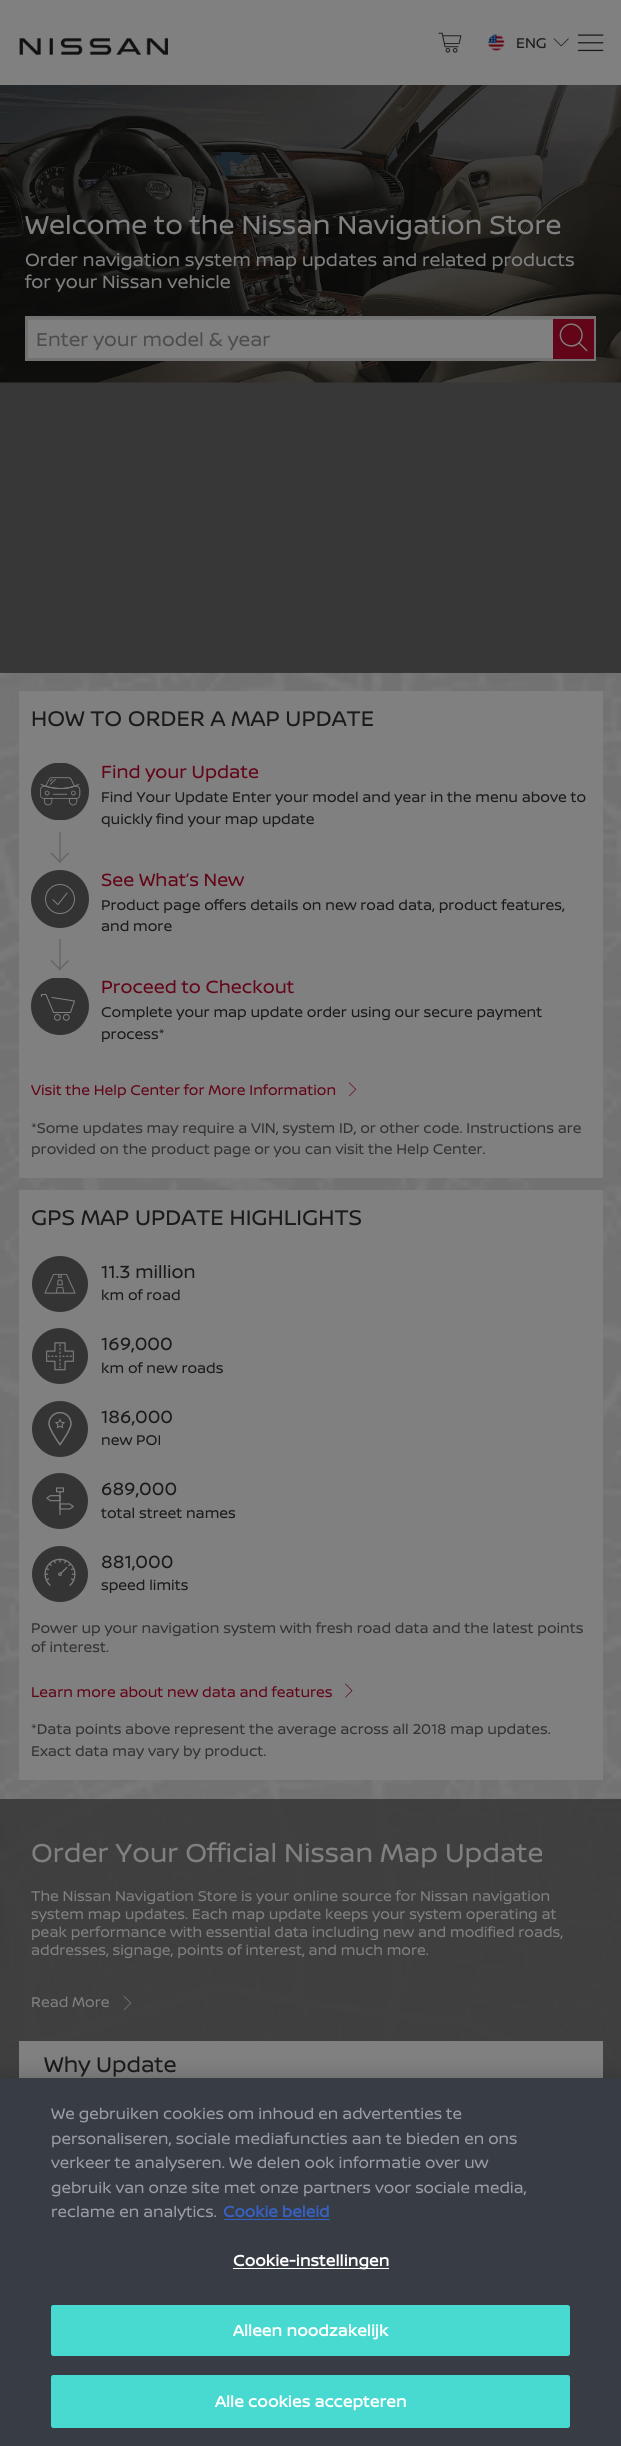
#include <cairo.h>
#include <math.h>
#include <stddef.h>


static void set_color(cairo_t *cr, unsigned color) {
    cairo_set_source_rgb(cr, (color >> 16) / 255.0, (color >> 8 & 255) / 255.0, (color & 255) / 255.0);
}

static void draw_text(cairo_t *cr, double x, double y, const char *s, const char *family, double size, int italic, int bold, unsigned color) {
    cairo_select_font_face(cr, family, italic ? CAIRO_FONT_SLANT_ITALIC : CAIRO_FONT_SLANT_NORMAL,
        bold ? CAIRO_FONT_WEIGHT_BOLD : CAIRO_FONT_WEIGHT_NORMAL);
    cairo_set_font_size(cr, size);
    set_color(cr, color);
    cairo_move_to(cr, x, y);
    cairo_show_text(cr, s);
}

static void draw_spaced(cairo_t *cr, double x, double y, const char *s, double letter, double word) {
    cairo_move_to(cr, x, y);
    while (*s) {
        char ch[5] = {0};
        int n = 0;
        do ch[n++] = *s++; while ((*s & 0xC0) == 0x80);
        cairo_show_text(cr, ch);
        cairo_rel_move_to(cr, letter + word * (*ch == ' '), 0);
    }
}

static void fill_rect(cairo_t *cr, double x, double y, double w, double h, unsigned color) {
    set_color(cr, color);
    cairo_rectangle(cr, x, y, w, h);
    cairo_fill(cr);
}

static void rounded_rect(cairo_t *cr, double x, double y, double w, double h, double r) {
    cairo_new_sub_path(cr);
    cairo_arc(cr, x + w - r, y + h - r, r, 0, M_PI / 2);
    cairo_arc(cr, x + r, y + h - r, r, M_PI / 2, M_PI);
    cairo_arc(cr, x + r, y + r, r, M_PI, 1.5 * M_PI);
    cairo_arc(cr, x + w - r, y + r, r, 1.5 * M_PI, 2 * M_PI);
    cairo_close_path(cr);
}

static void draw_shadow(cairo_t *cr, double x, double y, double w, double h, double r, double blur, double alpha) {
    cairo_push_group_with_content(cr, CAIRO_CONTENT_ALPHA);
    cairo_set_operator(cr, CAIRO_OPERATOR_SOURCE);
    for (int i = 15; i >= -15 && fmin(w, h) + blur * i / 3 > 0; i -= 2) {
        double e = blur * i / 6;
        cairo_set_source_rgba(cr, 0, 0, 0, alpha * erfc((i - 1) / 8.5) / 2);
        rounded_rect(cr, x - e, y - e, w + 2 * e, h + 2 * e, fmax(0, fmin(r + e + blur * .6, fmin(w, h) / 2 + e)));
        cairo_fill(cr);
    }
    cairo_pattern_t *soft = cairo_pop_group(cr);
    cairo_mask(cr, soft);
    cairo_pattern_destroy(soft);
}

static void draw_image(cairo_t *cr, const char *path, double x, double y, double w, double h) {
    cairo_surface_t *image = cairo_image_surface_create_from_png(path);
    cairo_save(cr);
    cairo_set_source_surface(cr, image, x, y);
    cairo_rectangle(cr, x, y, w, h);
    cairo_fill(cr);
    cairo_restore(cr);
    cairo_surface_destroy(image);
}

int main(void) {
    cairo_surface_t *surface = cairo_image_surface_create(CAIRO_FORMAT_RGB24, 621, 2446);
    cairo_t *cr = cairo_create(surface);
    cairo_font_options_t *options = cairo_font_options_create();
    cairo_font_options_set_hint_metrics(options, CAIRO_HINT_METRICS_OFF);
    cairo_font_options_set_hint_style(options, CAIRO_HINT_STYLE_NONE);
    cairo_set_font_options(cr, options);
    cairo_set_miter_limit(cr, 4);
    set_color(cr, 0x6F6F6F);
    cairo_paint(cr);
    fill_rect(cr, 0, 0, 621, 85, 0x808080);
    draw_image(cr, "assets/img1.png", 19, 38, 149, 17);
    draw_image(cr, "assets/img2.png", 438, 32, 24, 21);
    draw_image(cr, "assets/img3.png", 488, 34, 17, 17);
    draw_text(cr, 516, 48, "ENG", "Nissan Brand", 15, 0, 0, 0x1A1A1A);
    draw_image(cr, "assets/img4.png", 553, 38, 16, 9);
    draw_image(cr, "assets/img5.png", 577, 34, 27, 18);
    draw_image(cr, "assets/img8.png", 0, 672, 621, 1406);
    cairo_set_source_rgba(cr, 0, 0, 0, 0.5);
    cairo_rectangle(cr, 0, 382, 621, 291);
    cairo_fill(cr);
    draw_image(cr, "assets/img6.png", 0, 85, 621, 298);
    draw_text(cr, 25, 234, "Welcome to the Nissan Navigation Store", "Nissan Brand", 27.5, 0, 0, 0x808080);
    draw_text(cr, 25, 266, "Order navigation system map updates and related products", "Nissan Brand", 18.75, 0, 0, 0x808080);
    draw_text(cr, 25, 288, "for your Nissan vehicle", "Nissan Brand", 18.75, 0, 0, 0x808080);
    fill_rect(cr, 28, 320, 525, 38, 0x808080);
    fill_rect(cr, 28, 319, 525, 1, 0x767676);
    cairo_rectangle(cr, 26.5, 317.5, 568, 42);
    set_color(cr, 0x727272);
    cairo_set_line_width(cr, 3);
    cairo_stroke(cr);
    draw_text(cr, 36, 346, "Enter your model & year", "Nissan Brand", 19.9, 0, 0, 0x4D4D4D);
    fill_rect(cr, 553, 319, 41, 40, 0x630518);
    draw_image(cr, "assets/img7.png", 559, 323, 29, 29);
    fill_rect(cr, 19, 691, 584, 487, 0x808080);
    draw_text(cr, 31, 726, "HOW TO ORDER A MAP UPDATE", "Nissan Brand", 22.5, 0, 0, 0x1A1A1A);
    draw_image(cr, "assets/img9.png", 31, 763, 58, 57);
    draw_text(cr, 101, 778, "Find your Update", "Nissan Brand", 18.75, 0, 0, 0x630518);
    draw_text(cr, 101, 802, "Find Your Update Enter your model and year in the menu above to", "Nissan Brand", 15, 0, 0, 0x1A1A1A);
    draw_text(cr, 101, 824, "quickly find your map update", "Nissan Brand", 15, 0, 0, 0x1A1A1A);
    fill_rect(cr, 59, 832, 2, 30, 0x6D6D6D);
    cairo_new_path(cr);
    cairo_move_to(cr, 68.5, 853);
    cairo_line_to(cr, 59, 862.5);
    set_color(cr, 0x666666);
    cairo_set_line_width(cr, 1.5);
    cairo_stroke(cr);
    cairo_save(cr);
    cairo_new_path(cr);
    cairo_move_to(cr, 69.5, 831.5);
    cairo_line_to(cr, 69.5, 863);
    cairo_line_to(cr, 50.5, 863);
    cairo_line_to(cr, 50.5, 831.5);
    cairo_close_path(cr);
    cairo_clip(cr);
    cairo_new_path(cr);
    cairo_move_to(cr, 51, 853);
    cairo_line_to(cr, 60.5, 862.5);
    cairo_stroke(cr);
    cairo_restore(cr);
    draw_image(cr, "assets/img10.png", 31, 870, 58, 58);
    draw_text(cr, 101, 886, "See What’s New", "Nissan Brand", 18.75, 0, 0, 0x630518);
    draw_text(cr, 101, 910, "Product page offers details on new road data, product features,", "Nissan Brand", 15, 0, 0, 0x1A1A1A);
    draw_text(cr, 101, 931, "and more", "Nissan Brand", 15, 0, 0, 0x1A1A1A);
    fill_rect(cr, 59, 939, 2, 31, 0x6D6D6D);
    cairo_new_path(cr);
    cairo_move_to(cr, 68.5, 960.5);
    cairo_line_to(cr, 59, 970);
    set_color(cr, 0x666666);
    cairo_stroke(cr);
    cairo_save(cr);
    cairo_new_path(cr);
    cairo_move_to(cr, 69.5, 939);
    cairo_line_to(cr, 69.5, 970.5);
    cairo_line_to(cr, 50.5, 970.5);
    cairo_line_to(cr, 50.5, 939);
    cairo_close_path(cr);
    cairo_clip(cr);
    cairo_new_path(cr);
    cairo_move_to(cr, 51, 960.5);
    cairo_line_to(cr, 60.5, 970);
    cairo_stroke(cr);
    cairo_restore(cr);
    cairo_save(cr);
    cairo_rectangle(cr, 31, 978, 58, 57);
    cairo_clip(cr);
    set_color(cr, 0x333333);
    cairo_arc(cr, 60, 1006, 29, 0, 2 * M_PI);
    cairo_fill(cr);
    cairo_restore(cr);
    cairo_new_path(cr);
    cairo_move_to(cr, 52, 997.5);
    cairo_line_to(cr, 74.5, 1001);
    cairo_line_to(cr, 70.5, 1012.5);
    cairo_line_to(cr, 53.5, 1012.5);
    cairo_line_to(cr, 46, 994.5);
    cairo_line_to(cr, 41.5, 994.5);
    cairo_line_to(cr, 41.5, 996.5);
    set_color(cr, 0x808080);
    cairo_set_line_width(cr, 1);
    cairo_set_line_cap(cr, CAIRO_LINE_CAP_ROUND);
    cairo_set_line_join(cr, CAIRO_LINE_JOIN_ROUND);
    cairo_stroke(cr);
    cairo_arc(cr, 57.4, 1017.4, 2.9, 0, 2 * M_PI);
    cairo_set_line_cap(cr, CAIRO_LINE_CAP_BUTT);
    cairo_set_line_join(cr, CAIRO_LINE_JOIN_MITER);
    cairo_stroke(cr);
    cairo_arc(cr, 66.3, 1017.4, 2.9, 0, 2 * M_PI);
    cairo_stroke(cr);
    draw_text(cr, 101, 993, "Proceed to Checkout", "Nissan Brand", 18.75, 0, 0, 0x630518);
    draw_text(cr, 101, 1017, "Complete your map update order using our secure payment", "Nissan Brand", 15, 0, 0, 0x1A1A1A);
    draw_text(cr, 101, 1039, "process*", "Nissan Brand", 15, 0, 0, 0x1A1A1A);
    draw_text(cr, 31, 1095, "Visit the Help Center for More Information", "Nissan Brand", 15, 0, 0, 0x630518);
    draw_image(cr, "assets/img11.png", 348, 1082, 9, 15);
    draw_text(cr, 31, 1133, "*Some updates may require a VIN, system ID, or other code. Instructions are", "Nissan Brand", 15, 0, 0, 0x333333);
    draw_text(cr, 31, 1154, "provided on the product page or you can visit the Help Center.", "Nissan Brand", 15, 0, 0, 0x333333);
    fill_rect(cr, 19, 1190, 584, 590, 0x808080);
    draw_text(cr, 31, 1225, "GPS MAP UPDATE HIGHLIGHTS", "Nissan Brand", 22.5, 0, 0, 0x1A1A1A);
    draw_image(cr, "assets/img12.png", 32, 1256, 56, 56);
    draw_text(cr, 101, 1278, "11.3 million", "Nissan Brand", 18.75, 0, 0, 0x1A1A1A);
    draw_text(cr, 101, 1300, "km of road", "Nissan Brand", 15, 0, 0, 0x1A1A1A);
    draw_image(cr, "assets/img13.png", 32, 1328, 56, 56);
    draw_text(cr, 101, 1350, "169,000", "Nissan Brand", 18.75, 0, 0, 0x1A1A1A);
    draw_text(cr, 101, 1373, "km of new roads", "Nissan Brand", 15, 0, 0, 0x1A1A1A);
    draw_image(cr, "assets/img14.png", 32, 1401, 56, 56);
    draw_text(cr, 101, 1423, "186,000", "Nissan Brand", 18.75, 0, 0, 0x1A1A1A);
    draw_text(cr, 101, 1445, "new POI", "Nissan Brand", 15, 0, 0, 0x1A1A1A);
    draw_image(cr, "assets/img15.png", 32, 1473, 56, 56);
    draw_text(cr, 101, 1495, "689,000", "Nissan Brand", 18.75, 0, 0, 0x1A1A1A);
    draw_text(cr, 101, 1518, "total street names", "Nissan Brand", 15, 0, 0, 0x1A1A1A);
    draw_image(cr, "assets/img16.png", 32, 1546, 56, 56);
    draw_text(cr, 101, 1568, "881,000", "Nissan Brand", 18.75, 0, 0, 0x1A1A1A);
    draw_text(cr, 101, 1590, "speed limits", "Nissan Brand", 15, 0, 0, 0x1A1A1A);
    draw_text(cr, 31, 1633, "Power up your navigation system with fresh road data and the latest points", "Nissan Brand", 15, 0, 0, 0x333333);
    draw_text(cr, 31, 1652, "of interest.", "Nissan Brand", 15, 0, 0, 0x333333);
    draw_text(cr, 31, 1697, "Learn more about new data and features", "Nissan Brand", 15, 0, 0, 0x630518);
    draw_image(cr, "assets/img17.png", 345, 1683, 8, 15);
    draw_text(cr, 31, 1734, "*Data points above represent the average across all 2018 map updates.", "Nissan Brand", 15, 0, 0, 0x333333);
    draw_text(cr, 31, 1756, "Exact data may vary by product.", "Nissan Brand", 15, 0, 0, 0x333333);
    cairo_set_source_rgba(cr, 0.2, 0.2, 0.2, 0.8);
    cairo_rectangle(cr, 0, 1799, 621, 279);
    cairo_fill(cr);
    draw_text(cr, 31, 1862, "Order Your Official Nissan Map Update", "Nissan Brand", 27.5, 0, 0, 0x808080);
    draw_text(cr, 31, 1901, "The Nissan Navigation Store is your online source for Nissan navigation", "Nissan Brand", 15, 0, 0, 0x808080);
    draw_text(cr, 31, 1919, "system map updates. Each map update keeps your system operating at", "Nissan Brand", 15, 0, 0, 0x808080);
    draw_text(cr, 31, 1937, "peak performance with essential data including new and modified roads,", "Nissan Brand", 15, 0, 0, 0x808080);
    draw_text(cr, 31, 1955, "addresses, signage, points of interest, and much more.", "Nissan Brand", 15, 0, 0, 0x808080);
    draw_text(cr, 31, 2007, "Read More", "Nissan Brand", 15, 0, 0, 0x808080);
    draw_image(cr, "assets/img18.png", 123, 1996, 9, 14);
    fill_rect(cr, 19, 2041, 584, 37, 0x808080);
    draw_text(cr, 44, 2072, "Why Update", "Nissan Brand", 22.5, 0, 0, 0x1A1A1A);
    set_color(cr, 0x000000);
    draw_shadow(cr, 0, 2078, 621, 368, 0, 11, 0.2);
    fill_rect(cr, 0, 2078, 621, 368, 0x383C45);
    draw_text(cr, 51, 2119, "We gebruiken cookies om inhoud en advertenties te", "Nissan Brand", 16.25, 0, 0, 0x9B9DA2);
    draw_text(cr, 51, 2144, "personaliseren, sociale mediafuncties aan te bieden en ons", "Nissan Brand", 16.25, 0, 0, 0x9B9DA2);
    draw_text(cr, 51, 2168, "verkeer te analyseren. We delen ook informatie over uw", "Nissan Brand", 16.25, 0, 0, 0x9B9DA2);
    draw_text(cr, 51, 2193, "gebruik van onze site met onze partners voor sociale media,", "Nissan Brand", 16.25, 0, 0, 0x9B9DA2);
    draw_text(cr, 51, 2217, "reclame en analytics.", "Nissan Brand", 16.25, 0, 0, 0x9B9DA2);
    draw_text(cr, 223, 2217, "Cookie beleid", "Nissan Brand", 16.25, 0, 1, 0x3860BE);
    fill_rect(cr, 224, 2219, 106, 1, 0x3860BE);
    fill_rect(cr, 233, 2268, 156, 1, 0xFFFFFF);
    draw_spaced(cr, 233, 2266, "Cookie-instellingen", 0.2, 0);
    set_color(cr, 0x48DAD0);
    rounded_rect(cr, 51.5, 2305.5, 518, 50, 2);
    cairo_fill_preserve(cr);
    cairo_stroke(cr);
    set_color(cr, 0xFFFFFF);
    draw_spaced(cr, 233, 2336, "Alleen noodzakelijk", 0.2, 0);
    set_color(cr, 0x48DAD0);
    rounded_rect(cr, 51.5, 2375.5, 518, 52, 2);
    cairo_fill_preserve(cr);
    cairo_stroke(cr);
    set_color(cr, 0xFFFFFF);
    draw_spaced(cr, 215, 2407, "Alle cookies accepteren", 0.2, 0);
    cairo_surface_write_to_png(surface, "output.png");
    cairo_font_options_destroy(options);
    cairo_destroy(cr);
    cairo_surface_destroy(surface);
    return 0;
}
